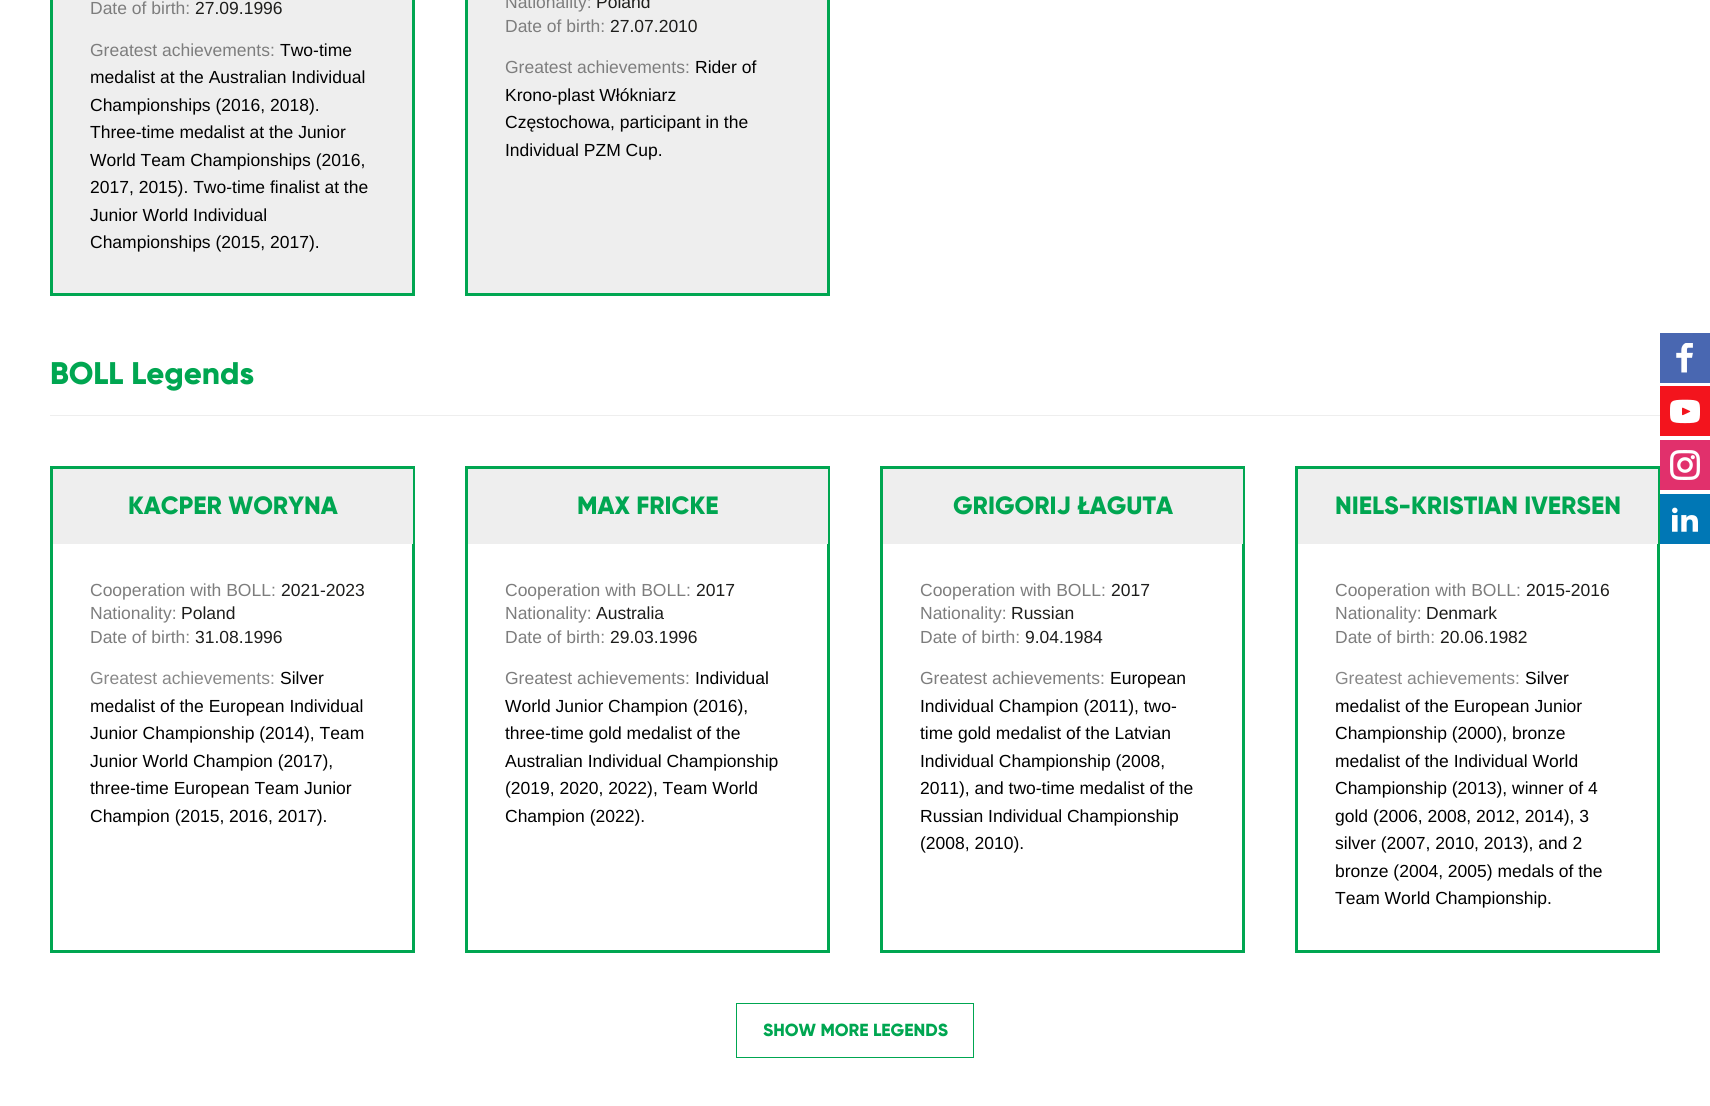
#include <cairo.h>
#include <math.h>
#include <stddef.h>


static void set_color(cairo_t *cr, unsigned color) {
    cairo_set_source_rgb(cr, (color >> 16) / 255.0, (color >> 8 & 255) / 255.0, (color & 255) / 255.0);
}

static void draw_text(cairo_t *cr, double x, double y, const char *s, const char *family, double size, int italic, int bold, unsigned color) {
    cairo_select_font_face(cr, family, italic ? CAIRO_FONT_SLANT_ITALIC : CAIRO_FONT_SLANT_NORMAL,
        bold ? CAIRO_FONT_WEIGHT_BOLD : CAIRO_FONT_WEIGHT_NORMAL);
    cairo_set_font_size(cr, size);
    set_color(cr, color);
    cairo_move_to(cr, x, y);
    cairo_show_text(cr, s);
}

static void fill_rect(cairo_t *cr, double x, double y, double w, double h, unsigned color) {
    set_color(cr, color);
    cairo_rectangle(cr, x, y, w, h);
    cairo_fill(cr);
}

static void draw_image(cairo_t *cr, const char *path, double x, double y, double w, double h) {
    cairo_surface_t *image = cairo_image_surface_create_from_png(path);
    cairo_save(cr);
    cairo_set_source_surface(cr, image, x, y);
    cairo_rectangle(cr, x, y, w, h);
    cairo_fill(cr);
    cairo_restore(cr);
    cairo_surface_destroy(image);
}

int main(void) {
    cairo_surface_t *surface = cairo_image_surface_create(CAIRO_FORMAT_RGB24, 1710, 1106);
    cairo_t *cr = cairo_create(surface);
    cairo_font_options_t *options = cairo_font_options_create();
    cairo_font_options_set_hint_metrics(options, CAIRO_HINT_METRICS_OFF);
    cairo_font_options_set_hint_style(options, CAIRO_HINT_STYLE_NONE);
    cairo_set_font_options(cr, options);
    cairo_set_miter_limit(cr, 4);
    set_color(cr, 0xFFFFFF);
    cairo_paint(cr);
    set_color(cr, 0xEEEEEE);
    cairo_rectangle(cr, 51.5, -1.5, 362, 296);
    cairo_fill_preserve(cr);
    set_color(cr, 0x00A651);
    cairo_set_line_width(cr, 3);
    cairo_stroke(cr);
    draw_text(cr, 90, 14, "Date of birth:", "Liberation Sans", 17.5, 0, 0, 0x7D7D7D);
    draw_text(cr, 195, 14, "27.09.1996", "Liberation Sans", 17.5, 0, 0, 0x1D1D1B);
    draw_text(cr, 90, 56, "Greatest achievements:", "Liberation Sans", 17.5, 0, 0, 0x7D7D7D);
    draw_text(cr, 280, 56, "Two-time", "Liberation Sans", 17.5, 0, 0, 0x000000);
    draw_text(cr, 90, 83, "medalist at the Australian Individual", "Liberation Sans", 17.5, 0, 0, 0x000000);
    draw_text(cr, 90, 111, "Championships (2016, 2018).", "Liberation Sans", 17.5, 0, 0, 0x000000);
    draw_text(cr, 90, 138, "Three-time medalist at the Junior", "Liberation Sans", 17.5, 0, 0, 0x000000);
    draw_text(cr, 90, 166, "World Team Championships (2016,", "Liberation Sans", 17.5, 0, 0, 0x000000);
    draw_text(cr, 90, 193, "2017, 2015). Two-time finalist at the", "Liberation Sans", 17.5, 0, 0, 0x000000);
    draw_text(cr, 90, 221, "Junior World Individual", "Liberation Sans", 17.5, 0, 0, 0x000000);
    draw_text(cr, 90, 248, "Championships (2015, 2017).", "Liberation Sans", 17.5, 0, 0, 0x000000);
    set_color(cr, 0xEEEEEE);
    cairo_rectangle(cr, 466.5, -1.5, 362, 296);
    cairo_fill_preserve(cr);
    set_color(cr, 0x00A651);
    cairo_stroke(cr);
    draw_text(cr, 505, 8, "Nationality:", "Liberation Sans", 17.5, 0, 0, 0x7D7D7D);
    draw_text(cr, 596, 8, "Poland", "Liberation Sans", 17.5, 0, 0, 0x1D1D1B);
    draw_text(cr, 505, 32, "Date of birth:", "Liberation Sans", 17.5, 0, 0, 0x7D7D7D);
    draw_text(cr, 610, 32, "27.07.2010", "Liberation Sans", 17.5, 0, 0, 0x1D1D1B);
    draw_text(cr, 505, 73, "Greatest achievements:", "Liberation Sans", 17.5, 0, 0, 0x7D7D7D);
    draw_text(cr, 695, 73, "Rider of", "Liberation Sans", 17.5, 0, 0, 0x000000);
    draw_text(cr, 505, 101, "Krono-plast Włókniarz", "Liberation Sans", 17.5, 0, 0, 0x000000);
    draw_text(cr, 505, 128, "Częstochowa, participant in the", "Liberation Sans", 17.5, 0, 0, 0x000000);
    draw_text(cr, 505, 156, "Individual PZM Cup.", "Liberation Sans", 17.5, 0, 0, 0x000000);
    fill_rect(cr, 50, 415, 1610, 1, 0xEEEEEE);
    draw_text(cr, 50, 384, "BOLL Legends", "Gilroy ExtraBold", 31.25, 0, 0, 0x00A651);
    cairo_rectangle(cr, 51.5, 467.5, 362, 484);
    cairo_stroke(cr);
    fill_rect(cr, 53, 469, 360, 75, 0xEEEEEE);
    draw_text(cr, 128, 514, "KACPER WORYNA", "Gilroy ExtraBold", 25, 0, 0, 0x00A651);
    draw_text(cr, 90, 596, "Cooperation with BOLL:", "Liberation Sans", 17.5, 0, 0, 0x7D7D7D);
    draw_text(cr, 281, 596, "2021-2023", "Liberation Sans", 17.5, 0, 0, 0x1D1D1B);
    draw_text(cr, 90, 619, "Nationality:", "Liberation Sans", 17.5, 0, 0, 0x7D7D7D);
    draw_text(cr, 181, 619, "Poland", "Liberation Sans", 17.5, 0, 0, 0x1D1D1B);
    draw_text(cr, 90, 643, "Date of birth:", "Liberation Sans", 17.5, 0, 0, 0x7D7D7D);
    draw_text(cr, 195, 643, "31.08.1996", "Liberation Sans", 17.5, 0, 0, 0x1D1D1B);
    draw_text(cr, 90, 684, "Greatest achievements:", "Liberation Sans", 17.5, 0, 0, 0x888888);
    draw_text(cr, 280, 684, "Silver", "Liberation Sans", 17.5, 0, 0, 0x000000);
    draw_text(cr, 90, 712, "medalist of the European Individual", "Liberation Sans", 17.5, 0, 0, 0x000000);
    draw_text(cr, 90, 739, "Junior Championship (2014), Team", "Liberation Sans", 17.5, 0, 0, 0x000000);
    draw_text(cr, 90, 767, "Junior World Champion (2017),", "Liberation Sans", 17.5, 0, 0, 0x000000);
    draw_text(cr, 90, 794, "three-time European Team Junior", "Liberation Sans", 17.5, 0, 0, 0x000000);
    draw_text(cr, 90, 822, "Champion (2015, 2016, 2017).", "Liberation Sans", 17.5, 0, 0, 0x000000);
    cairo_rectangle(cr, 466.5, 467.5, 362, 484);
    set_color(cr, 0x00A651);
    cairo_stroke(cr);
    fill_rect(cr, 468, 469, 360, 75, 0xEEEEEE);
    draw_text(cr, 577, 514, "MAX FRICKE", "Gilroy ExtraBold", 25, 0, 0, 0x00A651);
    draw_text(cr, 505, 596, "Cooperation with BOLL:", "Liberation Sans", 17.5, 0, 0, 0x7D7D7D);
    draw_text(cr, 696, 596, "2017", "Liberation Sans", 17.5, 0, 0, 0x1D1D1B);
    draw_text(cr, 505, 619, "Nationality:", "Liberation Sans", 17.5, 0, 0, 0x7D7D7D);
    draw_text(cr, 596, 619, "Australia", "Liberation Sans", 17.5, 0, 0, 0x1D1D1B);
    draw_text(cr, 505, 643, "Date of birth:", "Liberation Sans", 17.5, 0, 0, 0x7D7D7D);
    draw_text(cr, 610, 643, "29.03.1996", "Liberation Sans", 17.5, 0, 0, 0x1D1D1B);
    draw_text(cr, 505, 684, "Greatest achievements:", "Liberation Sans", 17.5, 0, 0, 0x7D7D7D);
    draw_text(cr, 695, 684, "Individual", "Liberation Sans", 17.5, 0, 0, 0x000000);
    draw_text(cr, 505, 712, "World Junior Champion (2016),", "Liberation Sans", 17.5, 0, 0, 0x000000);
    draw_text(cr, 505, 739, "three-time gold medalist of the", "Liberation Sans", 17.5, 0, 0, 0x000000);
    draw_text(cr, 505, 767, "Australian Individual Championship", "Liberation Sans", 17.5, 0, 0, 0x000000);
    draw_text(cr, 505, 794, "(2019, 2020, 2022), Team World", "Liberation Sans", 17.5, 0, 0, 0x000000);
    draw_text(cr, 505, 822, "Champion (2022).", "Liberation Sans", 17.5, 0, 0, 0x000000);
    cairo_rectangle(cr, 881.5, 467.5, 362, 484);
    set_color(cr, 0x00A651);
    cairo_stroke(cr);
    fill_rect(cr, 883, 469, 360, 75, 0xEEEEEE);
    draw_text(cr, 953, 514, "GRIGORIJ ŁAGUTA", "Gilroy ExtraBold", 25, 0, 0, 0x00A651);
    draw_text(cr, 920, 596, "Cooperation with BOLL:", "Liberation Sans", 17.5, 0, 0, 0x7D7D7D);
    draw_text(cr, 1111, 596, "2017", "Liberation Sans", 17.5, 0, 0, 0x1D1D1B);
    draw_text(cr, 920, 619, "Nationality:", "Liberation Sans", 17.5, 0, 0, 0x7D7D7D);
    draw_text(cr, 1011, 619, "Russian", "Liberation Sans", 17.5, 0, 0, 0x1D1D1B);
    draw_text(cr, 920, 643, "Date of birth:", "Liberation Sans", 17.5, 0, 0, 0x7D7D7D);
    draw_text(cr, 1025, 643, "9.04.1984", "Liberation Sans", 17.5, 0, 0, 0x1D1D1B);
    draw_text(cr, 920, 684, "Greatest achievements:", "Liberation Sans", 17.5, 0, 0, 0x7D7D7D);
    draw_text(cr, 1110, 684, "European", "Liberation Sans", 17.5, 0, 0, 0x000000);
    draw_text(cr, 920, 712, "Individual Champion (2011), two-", "Liberation Sans", 17.5, 0, 0, 0x000000);
    draw_text(cr, 920, 739, "time gold medalist of the Latvian", "Liberation Sans", 17.5, 0, 0, 0x000000);
    draw_text(cr, 920, 767, "Individual Championship (2008,", "Liberation Sans", 17.5, 0, 0, 0x000000);
    draw_text(cr, 920, 794, "2011), and two-time medalist of the", "Liberation Sans", 17.5, 0, 0, 0x000000);
    draw_text(cr, 920, 822, "Russian Individual Championship", "Liberation Sans", 17.5, 0, 0, 0x000000);
    draw_text(cr, 920, 849, "(2008, 2010).", "Liberation Sans", 17.5, 0, 0, 0x000000);
    cairo_rectangle(cr, 1296.5, 467.5, 362, 484);
    set_color(cr, 0x00A651);
    cairo_stroke(cr);
    fill_rect(cr, 1298, 469, 360, 75, 0xEEEEEE);
    draw_text(cr, 1335, 514, "NIELS-KRISTIAN IVERSEN", "Gilroy ExtraBold", 25, 0, 0, 0x00A651);
    draw_text(cr, 1335, 596, "Cooperation with BOLL:", "Liberation Sans", 17.5, 0, 0, 0x7D7D7D);
    draw_text(cr, 1526, 596, "2015-2016", "Liberation Sans", 17.5, 0, 0, 0x1D1D1B);
    draw_text(cr, 1335, 619, "Nationality:", "Liberation Sans", 17.5, 0, 0, 0x7D7D7D);
    draw_text(cr, 1426, 619, "Denmark", "Liberation Sans", 17.5, 0, 0, 0x1D1D1B);
    draw_text(cr, 1335, 643, "Date of birth:", "Liberation Sans", 17.5, 0, 0, 0x7D7D7D);
    draw_text(cr, 1440, 643, "20.06.1982", "Liberation Sans", 17.5, 0, 0, 0x1D1D1B);
    draw_text(cr, 1335, 684, "Greatest achievements:", "Liberation Sans", 17.5, 0, 0, 0x888888);
    draw_text(cr, 1525, 684, "Silver", "Liberation Sans", 17.5, 0, 0, 0x000000);
    draw_text(cr, 1335, 712, "medalist of the European Junior", "Liberation Sans", 17.5, 0, 0, 0x000000);
    draw_text(cr, 1335, 739, "Championship (2000), bronze", "Liberation Sans", 17.5, 0, 0, 0x000000);
    draw_text(cr, 1335, 767, "medalist of the Individual World", "Liberation Sans", 17.5, 0, 0, 0x000000);
    draw_text(cr, 1335, 794, "Championship (2013), winner of 4", "Liberation Sans", 17.5, 0, 0, 0x000000);
    draw_text(cr, 1335, 822, "gold (2006, 2008, 2012, 2014), 3", "Liberation Sans", 17.5, 0, 0, 0x000000);
    draw_text(cr, 1335, 849, "silver (2007, 2010, 2013), and 2", "Liberation Sans", 17.5, 0, 0, 0x000000);
    draw_text(cr, 1335, 877, "bronze (2004, 2005) medals of the", "Liberation Sans", 17.5, 0, 0, 0x000000);
    draw_text(cr, 1335, 904, "Team World Championship.", "Liberation Sans", 17.5, 0, 0, 0x000000);
    cairo_rectangle(cr, 736.5, 1003.5, 237, 54);
    set_color(cr, 0x00A651);
    cairo_set_line_width(cr, 1);
    cairo_stroke(cr);
    draw_text(cr, 763, 1036, "SHOW MORE LEGENDS", "Gilroy ExtraBold", 17.5, 0, 0, 0x00A651);
    fill_rect(cr, 1660, 333, 50, 50, 0x4967B1);
    draw_image(cr, "assets/img1.png", 1676, 343, 17, 30);
    fill_rect(cr, 1660, 386, 50, 50, 0xF3141D);
    draw_image(cr, "assets/img2.png", 1670, 399, 30, 25);
    fill_rect(cr, 1660, 440, 50, 50, 0xE1306C);
    draw_image(cr, "assets/img3.png", 1670, 450, 30, 30);
    fill_rect(cr, 1660, 494, 50, 50, 0x0077B5);
    draw_image(cr, "assets/img4.png", 1672, 507, 26, 25);
    cairo_surface_write_to_png(surface, "output.png");
    cairo_font_options_destroy(options);
    cairo_destroy(cr);
    cairo_surface_destroy(surface);
    return 0;
}
